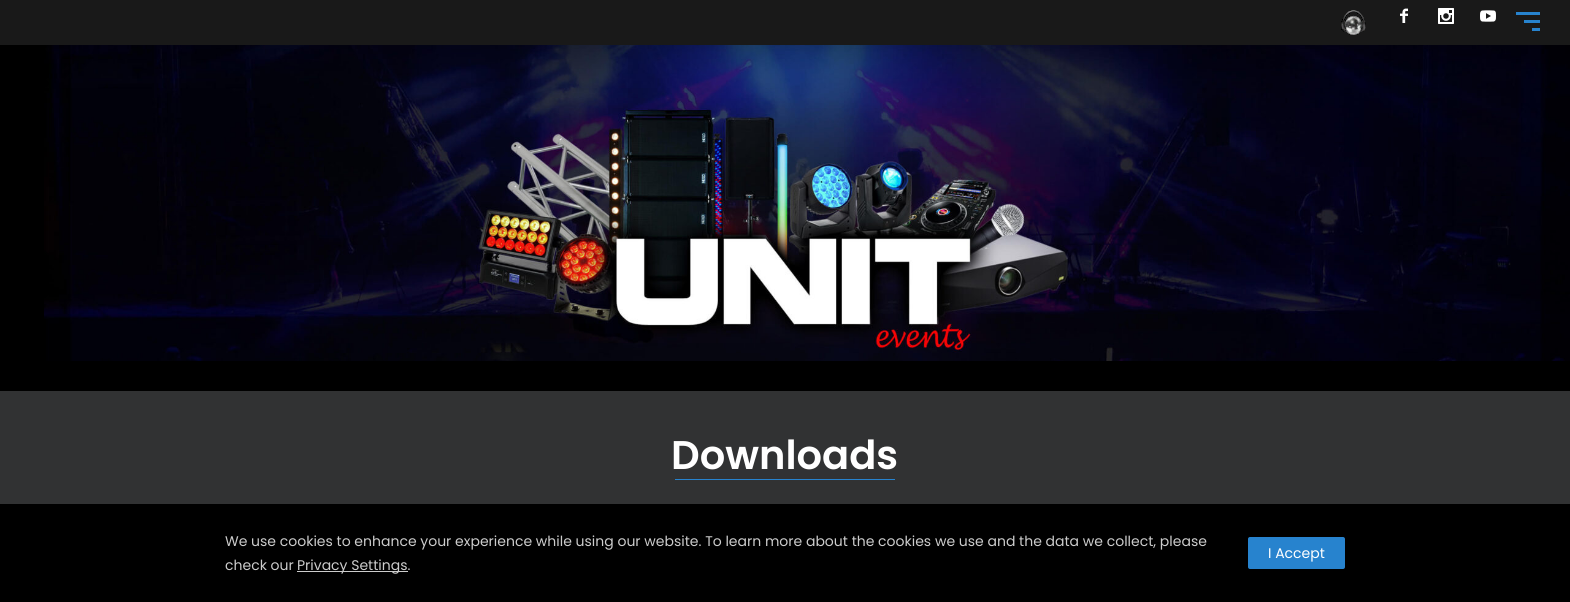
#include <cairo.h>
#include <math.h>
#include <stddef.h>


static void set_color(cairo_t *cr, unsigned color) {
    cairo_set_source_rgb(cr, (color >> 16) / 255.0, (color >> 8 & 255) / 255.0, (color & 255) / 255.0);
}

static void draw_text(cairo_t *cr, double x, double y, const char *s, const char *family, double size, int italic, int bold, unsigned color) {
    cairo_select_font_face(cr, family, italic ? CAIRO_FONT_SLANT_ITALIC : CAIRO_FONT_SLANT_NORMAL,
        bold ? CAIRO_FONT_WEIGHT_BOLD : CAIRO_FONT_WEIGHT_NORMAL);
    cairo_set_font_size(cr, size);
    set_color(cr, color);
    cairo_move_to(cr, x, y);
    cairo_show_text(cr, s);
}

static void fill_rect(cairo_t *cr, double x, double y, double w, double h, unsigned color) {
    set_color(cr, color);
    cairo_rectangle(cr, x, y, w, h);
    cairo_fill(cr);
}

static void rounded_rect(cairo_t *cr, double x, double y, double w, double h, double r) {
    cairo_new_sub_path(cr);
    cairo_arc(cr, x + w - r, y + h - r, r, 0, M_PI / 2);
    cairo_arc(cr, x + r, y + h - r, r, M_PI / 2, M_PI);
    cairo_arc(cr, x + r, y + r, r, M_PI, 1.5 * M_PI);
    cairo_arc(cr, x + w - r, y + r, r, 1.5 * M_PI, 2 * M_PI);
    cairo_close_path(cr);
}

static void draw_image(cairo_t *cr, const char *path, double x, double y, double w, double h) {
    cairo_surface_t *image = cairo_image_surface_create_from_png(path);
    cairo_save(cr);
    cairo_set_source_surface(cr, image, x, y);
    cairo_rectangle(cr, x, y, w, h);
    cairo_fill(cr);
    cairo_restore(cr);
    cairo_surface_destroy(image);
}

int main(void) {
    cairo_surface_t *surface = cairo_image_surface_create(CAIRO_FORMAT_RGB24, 1570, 602);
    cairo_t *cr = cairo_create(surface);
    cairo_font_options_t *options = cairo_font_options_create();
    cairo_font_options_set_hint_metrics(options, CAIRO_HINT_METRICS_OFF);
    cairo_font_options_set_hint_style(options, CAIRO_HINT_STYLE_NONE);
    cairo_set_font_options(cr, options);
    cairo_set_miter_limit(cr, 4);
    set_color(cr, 0x000000);
    cairo_paint(cr);
    fill_rect(cr, 0, 0, 1570, 45, 0x191919);
    draw_image(cr, "assets/img1.png", 1341, 10, 25, 25);
    draw_image(cr, "assets/img2.png", 1400, 8, 8, 15);
    draw_image(cr, "assets/img3.png", 1438, 8, 16, 16);
    draw_image(cr, "assets/img4.png", 1480, 10, 16, 12);
    fill_rect(cr, 1516, 12, 24, 3, 0x2783CE);
    fill_rect(cr, 1524, 20, 16, 3, 0x2783CE);
    fill_rect(cr, 1532, 28, 8, 3, 0x2783CE);
    draw_image(cr, "assets/img5.png", 44, 45, 1526, 316);
    fill_rect(cr, 0, 391, 1570, 113, 0x313233);
    draw_text(cr, 671, 469, "Downloads", "Poppins SemiBold", 40, 0, 0, 0xFFFFFF);
    fill_rect(cr, 675, 479, 220, 1, 0x2783CE);
    draw_text(cr, 225, 546, "We use cookies to enhance your experience while using our website. To learn more about the cookies we use and the data we collect, please", "Poppins", 14, 0, 0, 0xCCCCCC);
    draw_text(cr, 225, 570, "check our", "Poppins", 14, 0, 0, 0xCCCCCC);
    fill_rect(cr, 297, 571, 111, 1, 0xCCCCCC);
    draw_text(cr, 297, 570, "Privacy Settings.", "Poppins", 14, 0, 0, 0xCCCCCC);
    set_color(cr, 0x2783CE);
    rounded_rect(cr, 1248, 537, 97, 32, 2);
    cairo_fill(cr);
    draw_text(cr, 1268, 558, "I Accept", "Poppins", 14, 0, 0, 0xFFFFFF);
    cairo_surface_write_to_png(surface, "output.png");
    cairo_font_options_destroy(options);
    cairo_destroy(cr);
    cairo_surface_destroy(surface);
    return 0;
}
